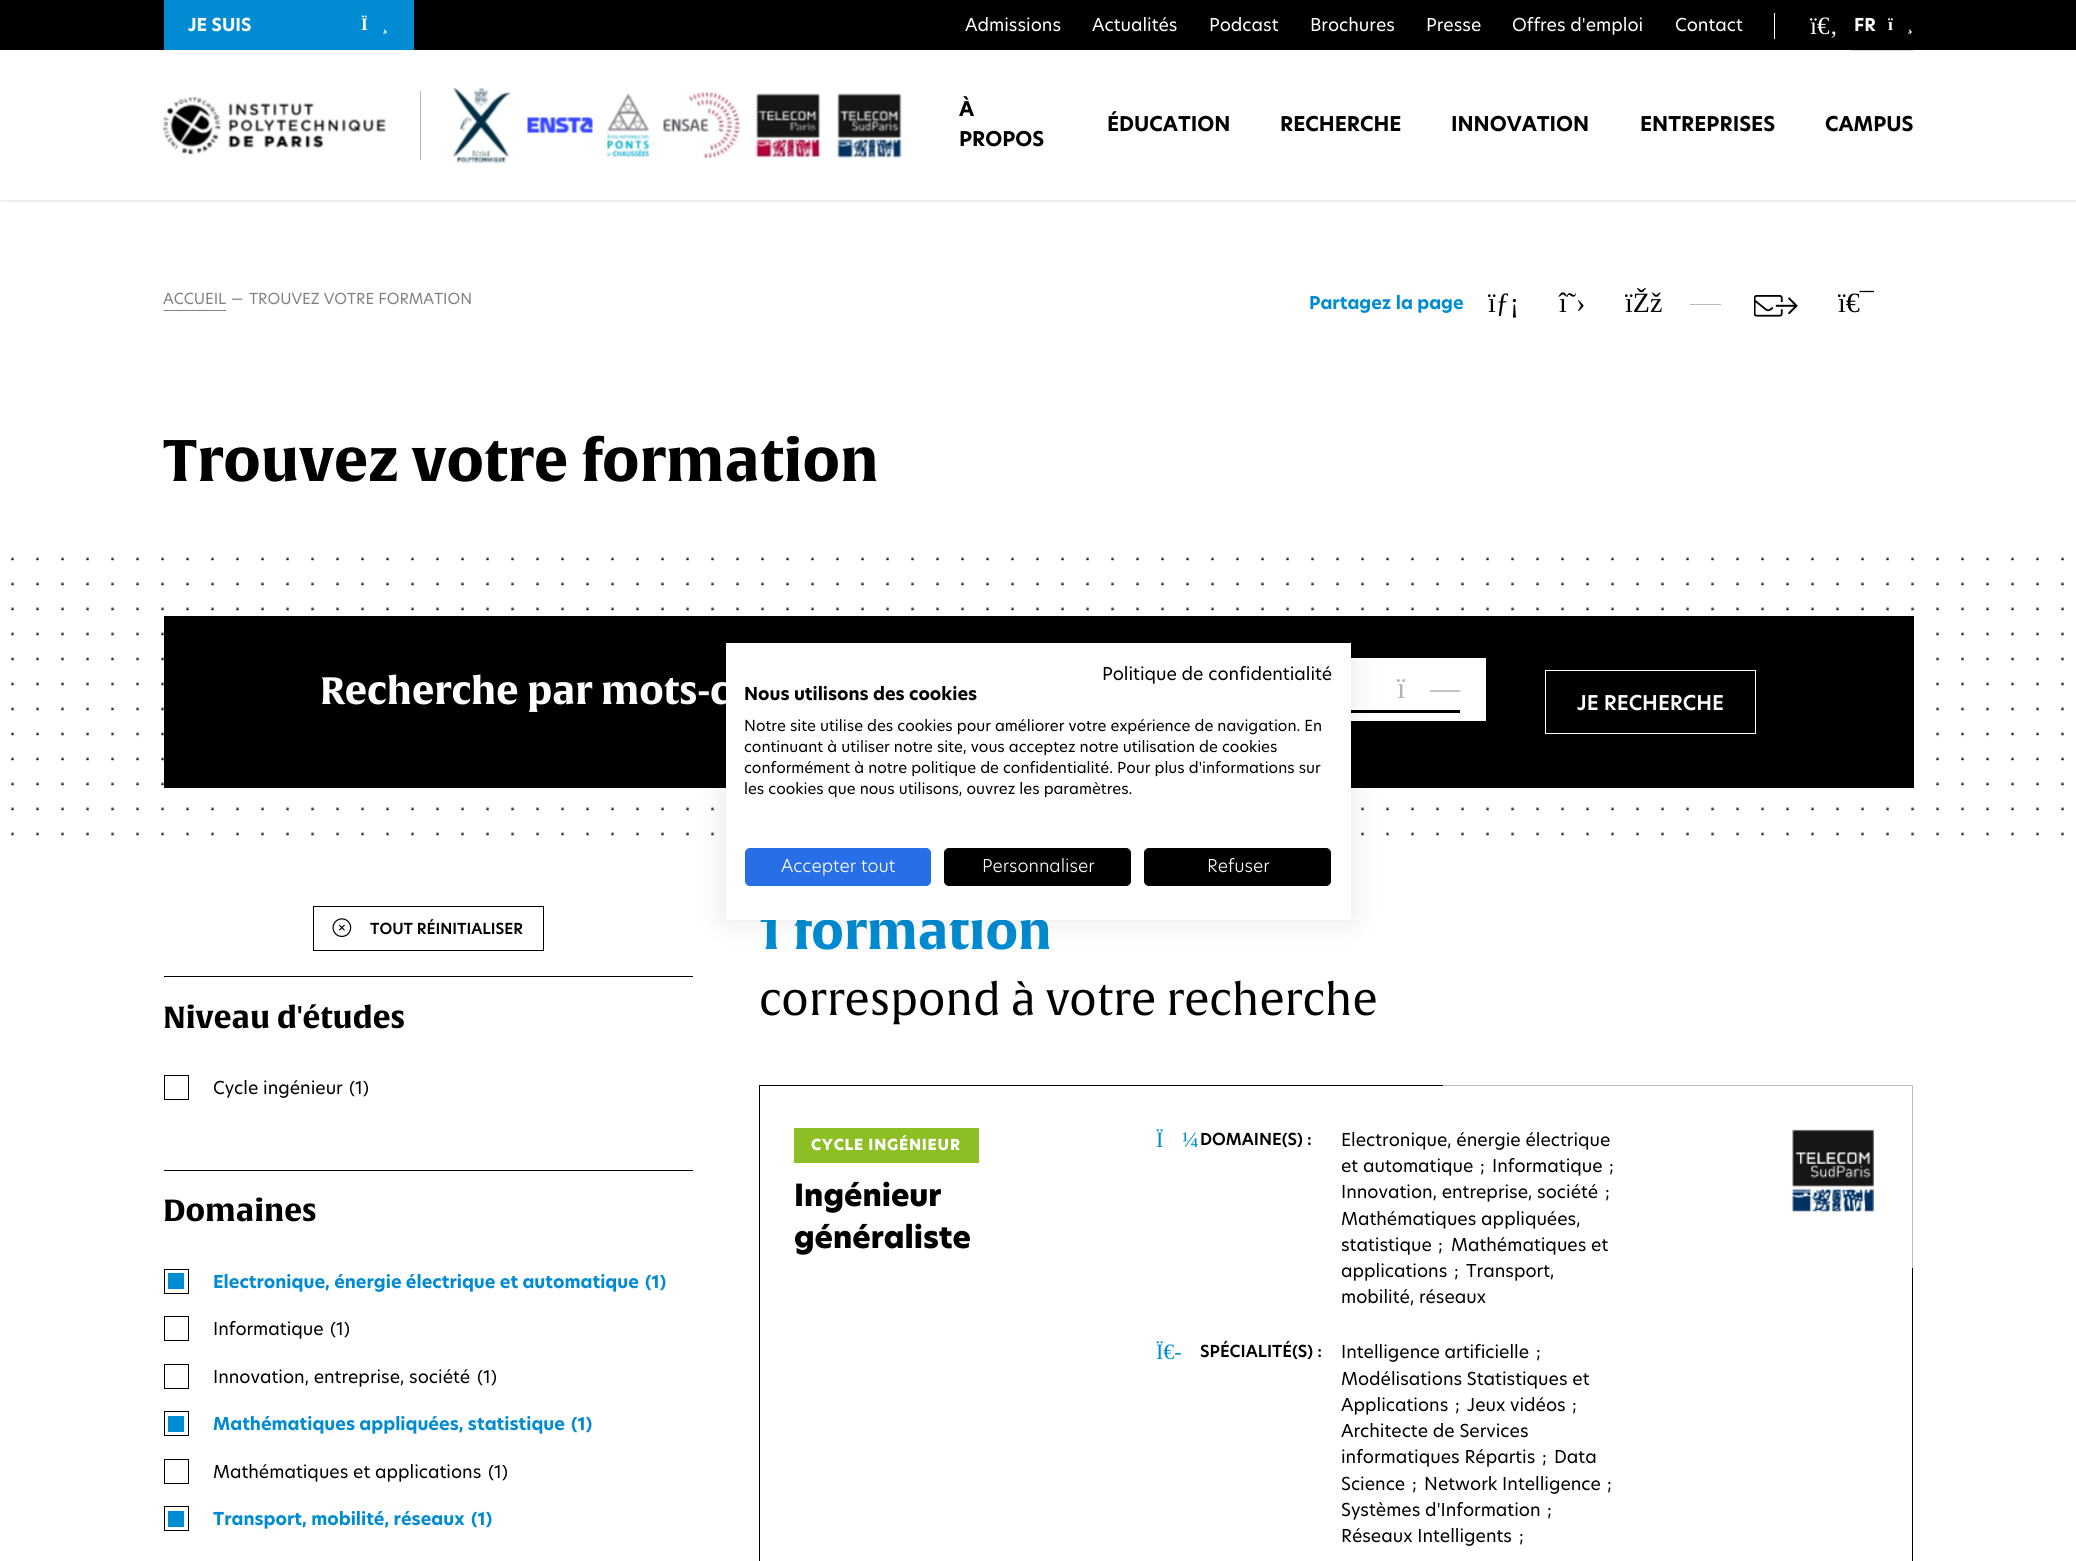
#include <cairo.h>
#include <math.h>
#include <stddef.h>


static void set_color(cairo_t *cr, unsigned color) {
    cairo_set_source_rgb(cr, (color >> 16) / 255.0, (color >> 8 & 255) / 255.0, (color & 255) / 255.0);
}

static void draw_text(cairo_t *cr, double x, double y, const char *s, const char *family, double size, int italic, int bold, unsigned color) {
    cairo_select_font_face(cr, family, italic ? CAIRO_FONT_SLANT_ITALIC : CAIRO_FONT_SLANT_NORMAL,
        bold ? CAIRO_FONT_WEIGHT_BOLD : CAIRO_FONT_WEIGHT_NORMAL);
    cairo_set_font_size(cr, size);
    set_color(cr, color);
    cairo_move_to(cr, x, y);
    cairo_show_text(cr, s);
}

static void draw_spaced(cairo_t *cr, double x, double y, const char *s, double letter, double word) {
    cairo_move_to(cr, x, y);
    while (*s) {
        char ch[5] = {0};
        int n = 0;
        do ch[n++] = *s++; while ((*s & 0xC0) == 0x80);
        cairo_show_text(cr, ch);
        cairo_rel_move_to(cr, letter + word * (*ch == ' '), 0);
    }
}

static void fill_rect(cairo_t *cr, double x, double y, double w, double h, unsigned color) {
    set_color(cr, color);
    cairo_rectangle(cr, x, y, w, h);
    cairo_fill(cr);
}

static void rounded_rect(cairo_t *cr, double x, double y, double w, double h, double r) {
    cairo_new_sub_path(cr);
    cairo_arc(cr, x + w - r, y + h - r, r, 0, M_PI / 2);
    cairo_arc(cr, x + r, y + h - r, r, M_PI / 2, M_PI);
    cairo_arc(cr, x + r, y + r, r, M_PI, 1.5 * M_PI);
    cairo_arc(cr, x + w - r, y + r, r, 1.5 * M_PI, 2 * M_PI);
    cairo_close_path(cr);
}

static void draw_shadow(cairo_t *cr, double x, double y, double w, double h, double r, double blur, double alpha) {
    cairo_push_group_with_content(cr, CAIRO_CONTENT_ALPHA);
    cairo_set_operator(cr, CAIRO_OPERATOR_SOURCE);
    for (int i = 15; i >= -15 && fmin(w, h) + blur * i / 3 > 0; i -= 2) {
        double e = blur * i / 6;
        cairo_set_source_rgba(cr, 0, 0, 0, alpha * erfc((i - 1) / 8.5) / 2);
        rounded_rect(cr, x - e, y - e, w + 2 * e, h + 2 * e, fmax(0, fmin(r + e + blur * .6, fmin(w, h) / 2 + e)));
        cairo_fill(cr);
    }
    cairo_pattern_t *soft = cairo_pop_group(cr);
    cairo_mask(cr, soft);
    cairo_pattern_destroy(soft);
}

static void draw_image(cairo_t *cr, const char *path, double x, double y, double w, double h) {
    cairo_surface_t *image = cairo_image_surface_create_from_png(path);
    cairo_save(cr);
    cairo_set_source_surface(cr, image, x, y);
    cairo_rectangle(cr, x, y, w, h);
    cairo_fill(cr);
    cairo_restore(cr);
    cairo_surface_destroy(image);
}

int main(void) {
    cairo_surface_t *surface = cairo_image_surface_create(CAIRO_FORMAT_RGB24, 2076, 1561);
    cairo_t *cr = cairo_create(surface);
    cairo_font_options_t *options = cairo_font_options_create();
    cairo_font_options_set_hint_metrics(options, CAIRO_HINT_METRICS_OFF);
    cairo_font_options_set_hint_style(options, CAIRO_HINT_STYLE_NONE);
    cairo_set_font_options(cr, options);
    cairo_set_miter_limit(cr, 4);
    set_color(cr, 0xFFFFFF);
    cairo_paint(cr);
    fill_rect(cr, 1851, 50, 63, 1, 0xD9D9D9);
    cairo_save(cr);
    cairo_rectangle(cr, 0, 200, 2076, 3);
    cairo_clip(cr);
    set_color(cr, 0x000000);
    draw_shadow(cr, 1, 0, 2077, 200, 0, 2.5, 0.15);
    cairo_restore(cr);
    fill_rect(cr, 0, 0, 2076, 50, 0x000000);
    fill_rect(cr, 164, 0, 250, 50, 0x008BD2);
    draw_text(cr, 188, 31, "JE SUIS", "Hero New", 17.5, 0, 1, 0xFFFFFF);
    draw_text(cr, 361, 30, "Ï", "Liberation Serif", 17.5, 0, 1, 0xFFFFFF);
    draw_text(cr, 382, 30, "¸", "Liberation Serif", 17.5, 0, 1, 0xFFFFFF);
    fill_rect(cr, 1774, 13, 1, 26, 0xFFFFFF);
    draw_text(cr, 965, 31, "Admissions", "Hero New", 17.5, 0, 0, 0xFFFFFF);
    draw_text(cr, 1092, 31, "Actualités", "Hero New", 17.5, 0, 0, 0xFFFFFF);
    draw_text(cr, 1209, 31, "Podcast", "Hero New", 17.5, 0, 0, 0xFFFFFF);
    draw_text(cr, 1310, 31, "Brochures", "Hero New", 17.5, 0, 0, 0xFFFFFF);
    draw_text(cr, 1426, 31, "Presse", "Hero New", 17.5, 0, 0, 0xFFFFFF);
    draw_text(cr, 1512, 31, "Offres d'emploi", "Hero New", 17.5, 0, 0, 0xFFFFFF);
    draw_text(cr, 1675, 31, "Contact", "Hero New", 17.5, 0, 0, 0xFFFFFF);
    draw_text(cr, 1810, 34, "ï€‚", "Liberation Serif", 25, 0, 0, 0xFFFFFF);
    draw_text(cr, 1854, 31, "FR", "Hero New", 17.5, 0, 1, 0xFFFFFF);
    draw_text(cr, 1888, 30, "ï", "Liberation Serif", 17.5, 0, 1, 0xFFFFFF);
    draw_text(cr, 1907, 30, "¸", "Liberation Serif", 17.5, 0, 1, 0xFFFFFF);
    fill_rect(cr, 420, 91, 1, 69, 0xB3B3B3);
    draw_image(cr, "assets/img1.png", 163, 97, 223, 58);
    draw_image(cr, "assets/img2.png", 453, 88, 58, 75);
    draw_image(cr, "assets/img3.png", 527, 116, 66, 18);
    draw_image(cr, "assets/img4.png", 607, 93, 43, 64);
    draw_image(cr, "assets/img5.png", 663, 92, 78, 67);
    draw_image(cr, "assets/img6.png", 755, 93, 67, 66);
    draw_image(cr, "assets/img7.png", 836, 93, 67, 66);
    draw_text(cr, 959, 116, "À", "Hero New", 20, 0, 1, 0x000000);
    draw_text(cr, 959, 146, "PROPOS", "Hero New", 20, 0, 1, 0x000000);
    draw_text(cr, 1107, 131, "ÉDUCATION", "Hero New", 20, 0, 1, 0x000000);
    draw_text(cr, 1280, 131, "RECHERCHE", "Hero New", 20, 0, 1, 0x000000);
    draw_text(cr, 1451, 131, "INNOVATION", "Hero New", 20, 0, 1, 0x000000);
    draw_text(cr, 1640, 131, "ENTREPRISES", "Hero New", 20, 0, 1, 0x000000);
    draw_text(cr, 1825, 131, "CAMPUS", "Hero New", 20, 0, 1, 0x000000);
    fill_rect(cr, 164, 310, 62, 1, 0x808080);
    draw_text(cr, 163, 304, "ACCUEIL", "Hero New", 15, 0, 0, 0x808080);
    draw_text(cr, 231, 304, "—", "Hero New", 15, 0, 0, 0x808080);
    draw_text(cr, 249, 304, "TROUVEZ VOTRE FORMATION", "Hero New", 15, 0, 0, 0x808080);
    draw_text(cr, 1309, 309, "Partagez la page", "Hero New", 17.5, 0, 1, 0x008BD2);
    draw_text(cr, 1488, 312, "ïƒ¡", "Liberation Serif", 28, 0, 0, 0x000000);
    draw_text(cr, 1559, 312, "î˜›", "Liberation Serif", 28, 0, 0, 0x000000);
    draw_text(cr, 1625, 312, "ïŽž", "Liberation Serif", 28, 0, 0, 0x000000);
    fill_rect(cr, 1690, 304, 31, 1, 0xB9B9B9);
    draw_image(cr, "assets/img8.png", 1754, 295, 44, 22);
    draw_text(cr, 1838, 312, "ï€¯", "Liberation Serif", 28, 0, 0, 0x000000);
    draw_text(cr, 163, 481, "Trouvez votre formation", "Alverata", 57.5, 0, 1, 0x000000);
    draw_image(cr, "assets/img9.png", 11, 557, 2053, 280);
    fill_rect(cr, 164, 616, 1750, 172, 0x000000);
    draw_text(cr, 320, 704, "Recherche par mots-c", "Alverata", 37.5, 0, 1, 0xFFFFFF);
    fill_rect(cr, 1351, 658, 135, 63, 0xFFFFFF);
    draw_text(cr, 1397, 698, "ï", "Liberation Serif", 30, 0, 0, 0xB3B3B3);
    draw_text(cr, 1430, 698, "—", "Liberation Serif", 30, 0, 0, 0xB3B3B3);
    fill_rect(cr, 1351, 710, 109, 3, 0x000000);
    cairo_rectangle(cr, 1545.5, 670.5, 210, 63);
    set_color(cr, 0xFFFFFF);
    cairo_set_line_width(cr, 1);
    cairo_stroke(cr);
    draw_text(cr, 1577, 710, "JE RECHERCHE", "Hero New SemiBold", 20, 0, 0, 0xFFFFFF);
    cairo_rectangle(cr, 313.5, 906.5, 230, 44);
    set_color(cr, 0x000000);
    cairo_stroke(cr);
    draw_image(cr, "assets/img10.png", 332, 918, 20, 19);
    draw_text(cr, 370, 934, "TOUT RÉINITIALISER", "Hero New SemiBold", 15, 0, 0, 0x000000);
    fill_rect(cr, 164, 976, 529, 1, 0x000000);
    draw_text(cr, 163, 1028, "Niveau d'études", "Alverata", 30, 0, 1, 0x000000);
    cairo_rectangle(cr, 164.5, 1075.5, 24, 24);
    cairo_stroke(cr);
    draw_text(cr, 213, 1094, "Cycle ingénieur", "Hero New", 17.5, 0, 0, 0x000000);
    draw_text(cr, 349, 1094, "(1)", "Hero New", 17.5, 0, 0, 0x000000);
    fill_rect(cr, 164, 1170, 529, 1, 0x000000);
    draw_text(cr, 163, 1221, "Domaines", "Alverata", 30, 0, 1, 0x000000);
    fill_rect(cr, 168, 1273, 16, 16, 0x018BD3);
    cairo_rectangle(cr, 164.5, 1269.5, 24, 24);
    set_color(cr, 0x000000);
    cairo_stroke(cr);
    draw_text(cr, 213, 1288, "Electronique, énergie électrique et automatique", "Hero New", 17.5, 0, 1, 0x008BD2);
    draw_text(cr, 645, 1288, "(1)", "Hero New", 17.5, 0, 1, 0x008BD2);
    cairo_rectangle(cr, 164.5, 1316.5, 24, 24);
    set_color(cr, 0x000000);
    cairo_stroke(cr);
    draw_text(cr, 213, 1335, "Informatique", "Hero New", 17.5, 0, 0, 0x000000);
    draw_text(cr, 330, 1335, "(1)", "Hero New", 17.5, 0, 0, 0x000000);
    cairo_rectangle(cr, 164.5, 1364.5, 24, 24);
    cairo_stroke(cr);
    draw_text(cr, 213, 1383, "Innovation, entreprise, société", "Hero New", 17.5, 0, 0, 0x000000);
    draw_text(cr, 477, 1383, "(1)", "Hero New", 17.5, 0, 0, 0x000000);
    fill_rect(cr, 168, 1416, 16, 16, 0x018BD3);
    cairo_rectangle(cr, 164.5, 1411.5, 24, 24);
    set_color(cr, 0x000000);
    cairo_stroke(cr);
    draw_text(cr, 213, 1430, "Mathématiques appliquées, statistique", "Hero New", 17.5, 0, 1, 0x008BD2);
    draw_text(cr, 571, 1430, "(1)", "Hero New", 17.5, 0, 1, 0x008BD2);
    cairo_rectangle(cr, 164.5, 1459.5, 24, 24);
    set_color(cr, 0x000000);
    cairo_stroke(cr);
    draw_text(cr, 213, 1478, "Mathématiques et applications", "Hero New", 17.5, 0, 0, 0x000000);
    draw_text(cr, 488, 1478, "(1)", "Hero New", 17.5, 0, 0, 0x000000);
    fill_rect(cr, 168, 1511, 16, 16, 0x018BD3);
    cairo_rectangle(cr, 164.5, 1506.5, 24, 24);
    set_color(cr, 0x000000);
    cairo_stroke(cr);
    draw_text(cr, 213, 1525, "Transport, mobilité, réseaux", "Hero New", 17.5, 0, 1, 0x008BD2);
    draw_text(cr, 471, 1525, "(1)", "Hero New", 17.5, 0, 1, 0x008BD2);
    draw_text(cr, 759, 949, "1 formation", "Alverata", 50, 0, 1, 0x008BD2);
    draw_text(cr, 759, 1015, "correspond à votre recherche", "Alverata", 43.75, 0, 0, 0x000000);
    cairo_rectangle(cr, 759.5, 1085.5, 1153, 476);
    cairo_stroke(cr);
    draw_text(cr, 1156, 1147, "Ï", "Liberation Serif", 22, 0, 0, 0x008BD2);
    draw_text(cr, 1182, 1147, "¼", "Liberation Serif", 22, 0, 0, 0x008BD2);
    draw_text(cr, 1200, 1145, "DOMAINE(S) :", "Hero New SemiBold", 16.25, 0, 0, 0x000000);
    cairo_set_source_rgba(cr, 1, 1, 1, 0.75);
    cairo_rectangle(cr, 1443, 1085, 470, 183);
    cairo_fill(cr);
    draw_text(cr, 1341, 1146, "Electronique, énergie électrique", "Hero New", 17.5, 0, 0, 0x000000);
    draw_text(cr, 1341, 1172, "et automatique", "Hero New", 17.5, 0, 0, 0x000000);
    draw_text(cr, 1480, 1172, ";", "Hero New", 17.5, 0, 0, 0x000000);
    draw_text(cr, 1492, 1172, "Informatique", "Hero New", 17.5, 0, 0, 0x000000);
    draw_text(cr, 1609, 1172, ";", "Hero New", 17.5, 0, 0, 0x000000);
    draw_text(cr, 1341, 1198, "Innovation, entreprise, société", "Hero New", 17.5, 0, 0, 0x000000);
    draw_text(cr, 1605, 1198, ";", "Hero New", 17.5, 0, 0, 0x000000);
    draw_text(cr, 1341, 1225, "Mathématiques appliquées,", "Hero New", 17.5, 0, 0, 0x000000);
    draw_text(cr, 1341, 1251, "statistique", "Hero New", 17.5, 0, 0, 0x000000);
    draw_text(cr, 1438, 1251, ";", "Hero New", 17.5, 0, 0, 0x000000);
    draw_text(cr, 1451, 1251, "Mathématiques et", "Hero New", 17.5, 0, 0, 0x000000);
    draw_text(cr, 1341, 1277, "applications", "Hero New", 17.5, 0, 0, 0x000000);
    draw_text(cr, 1454, 1277, ";", "Hero New", 17.5, 0, 0, 0x000000);
    draw_text(cr, 1466, 1277, "Transport,", "Hero New", 17.5, 0, 0, 0x000000);
    draw_text(cr, 1341, 1303, "mobilité, réseaux", "Hero New", 17.5, 0, 0, 0x000000);
    draw_text(cr, 1156, 1359, "Ï€-", "Liberation Serif", 22, 0, 0, 0x008BD2);
    draw_text(cr, 1200, 1357, "SPÉCIALITÉ(S) :", "Hero New SemiBold", 16.25, 0, 0, 0x000000);
    draw_text(cr, 1341, 1358, "Intelligence artificielle", "Hero New", 17.5, 0, 0, 0x000000);
    draw_text(cr, 1536, 1358, ";", "Hero New", 17.5, 0, 0, 0x000000);
    draw_text(cr, 1341, 1385, "Modélisations Statistiques et", "Hero New", 17.5, 0, 0, 0x000000);
    draw_text(cr, 1341, 1411, "Applications", "Hero New", 17.5, 0, 0, 0x000000);
    draw_text(cr, 1455, 1411, ";", "Hero New", 17.5, 0, 0, 0x000000);
    draw_text(cr, 1467, 1411, "Jeux vidéos", "Hero New", 17.5, 0, 0, 0x000000);
    draw_text(cr, 1572, 1411, ";", "Hero New", 17.5, 0, 0, 0x000000);
    draw_text(cr, 1341, 1437, "Architecte de Services", "Hero New", 17.5, 0, 0, 0x000000);
    draw_text(cr, 1341, 1463, "informatiques Répartis", "Hero New", 17.5, 0, 0, 0x000000);
    draw_text(cr, 1542, 1463, ";", "Hero New", 17.5, 0, 0, 0x000000);
    draw_text(cr, 1554, 1463, "Data", "Hero New", 17.5, 0, 0, 0x000000);
    draw_text(cr, 1341, 1490, "Science", "Hero New", 17.5, 0, 0, 0x000000);
    draw_text(cr, 1412, 1490, ";", "Hero New", 17.5, 0, 0, 0x000000);
    draw_text(cr, 1424, 1490, "Network Intelligence", "Hero New", 17.5, 0, 0, 0x000000);
    draw_text(cr, 1607, 1490, ";", "Hero New", 17.5, 0, 0, 0x000000);
    draw_text(cr, 1341, 1516, "Systèmes d'Information", "Hero New", 17.5, 0, 0, 0x000000);
    draw_text(cr, 1547, 1516, ";", "Hero New", 17.5, 0, 0, 0x000000);
    draw_text(cr, 1341, 1542, "Réseaux Intelligents", "Hero New", 17.5, 0, 0, 0x000000);
    draw_text(cr, 1519, 1542, ";", "Hero New", 17.5, 0, 0, 0x000000);
    fill_rect(cr, 794, 1128, 185, 35, 0x8DBE23);
    cairo_select_font_face(cr, "Hero New ExtraBold", CAIRO_FONT_SLANT_NORMAL, CAIRO_FONT_WEIGHT_NORMAL);
    cairo_set_font_size(cr, 15);
    set_color(cr, 0xFFFFFF);
    draw_spaced(cr, 811, 1150, "CYCLE INGÉNIEUR", 0.75, 0);
    draw_text(cr, 794, 1206, "Ingénieur", "Hero New ExtraBold", 30, 0, 0, 0x000000);
    draw_text(cr, 794, 1248, "généraliste", "Hero New ExtraBold", 30, 0, 0, 0x000000);
    draw_image(cr, "assets/img11.png", 1792, 1129, 82, 83);
    set_color(cr, 0x000000);
    draw_shadow(cr, 726, 643, 625, 277, 0, 15, 0.1);
    fill_rect(cr, 726, 643, 625, 277, 0xFFFFFF);
    draw_text(cr, 1102, 680, "Politique de confidentialité", "Hero New", 17.5, 0, 0, 0x000000);
    draw_text(cr, 744, 700, "Nous utilisons des cookies", "Hero New", 17.5, 0, 1, 0x000000);
    draw_text(cr, 744, 731, "Notre site utilise des cookies pour améliorer votre expérience de navigation. En", "Hero New", 15, 0, 0, 0x000000);
    draw_text(cr, 744, 752, "continuant à utiliser notre site, vous acceptez notre utilisation de cookies", "Hero New", 15, 0, 0, 0x000000);
    draw_text(cr, 744, 773, "conformément à notre politique de confidentialité. Pour plus d'informations sur", "Hero New", 15, 0, 0, 0x000000);
    draw_text(cr, 744, 794, "les cookies que nous utilisons, ouvrez les paramètres.", "Hero New", 15, 0, 0, 0x000000);
    set_color(cr, 0x286EE6);
    rounded_rect(cr, 745.5, 848.5, 185, 37, 4.5);
    cairo_fill_preserve(cr);
    cairo_stroke(cr);
    draw_text(cr, 781, 872, "Accepter tout", "Hero New Light", 17.5, 0, 0, 0xFFFFFF);
    set_color(cr, 0x000000);
    rounded_rect(cr, 944.5, 848.5, 186, 37, 4.5);
    cairo_fill_preserve(cr);
    cairo_stroke(cr);
    draw_text(cr, 982, 872, "Personnaliser", "Hero New Light", 17.5, 0, 0, 0xFFFFFF);
    set_color(cr, 0x000000);
    rounded_rect(cr, 1144.5, 848.5, 186, 37, 4.5);
    cairo_fill_preserve(cr);
    cairo_stroke(cr);
    draw_text(cr, 1207, 872, "Refuser", "Hero New Light", 17.5, 0, 0, 0xFFFFFF);
    cairo_surface_write_to_png(surface, "output.png");
    cairo_font_options_destroy(options);
    cairo_destroy(cr);
    cairo_surface_destroy(surface);
    return 0;
}
